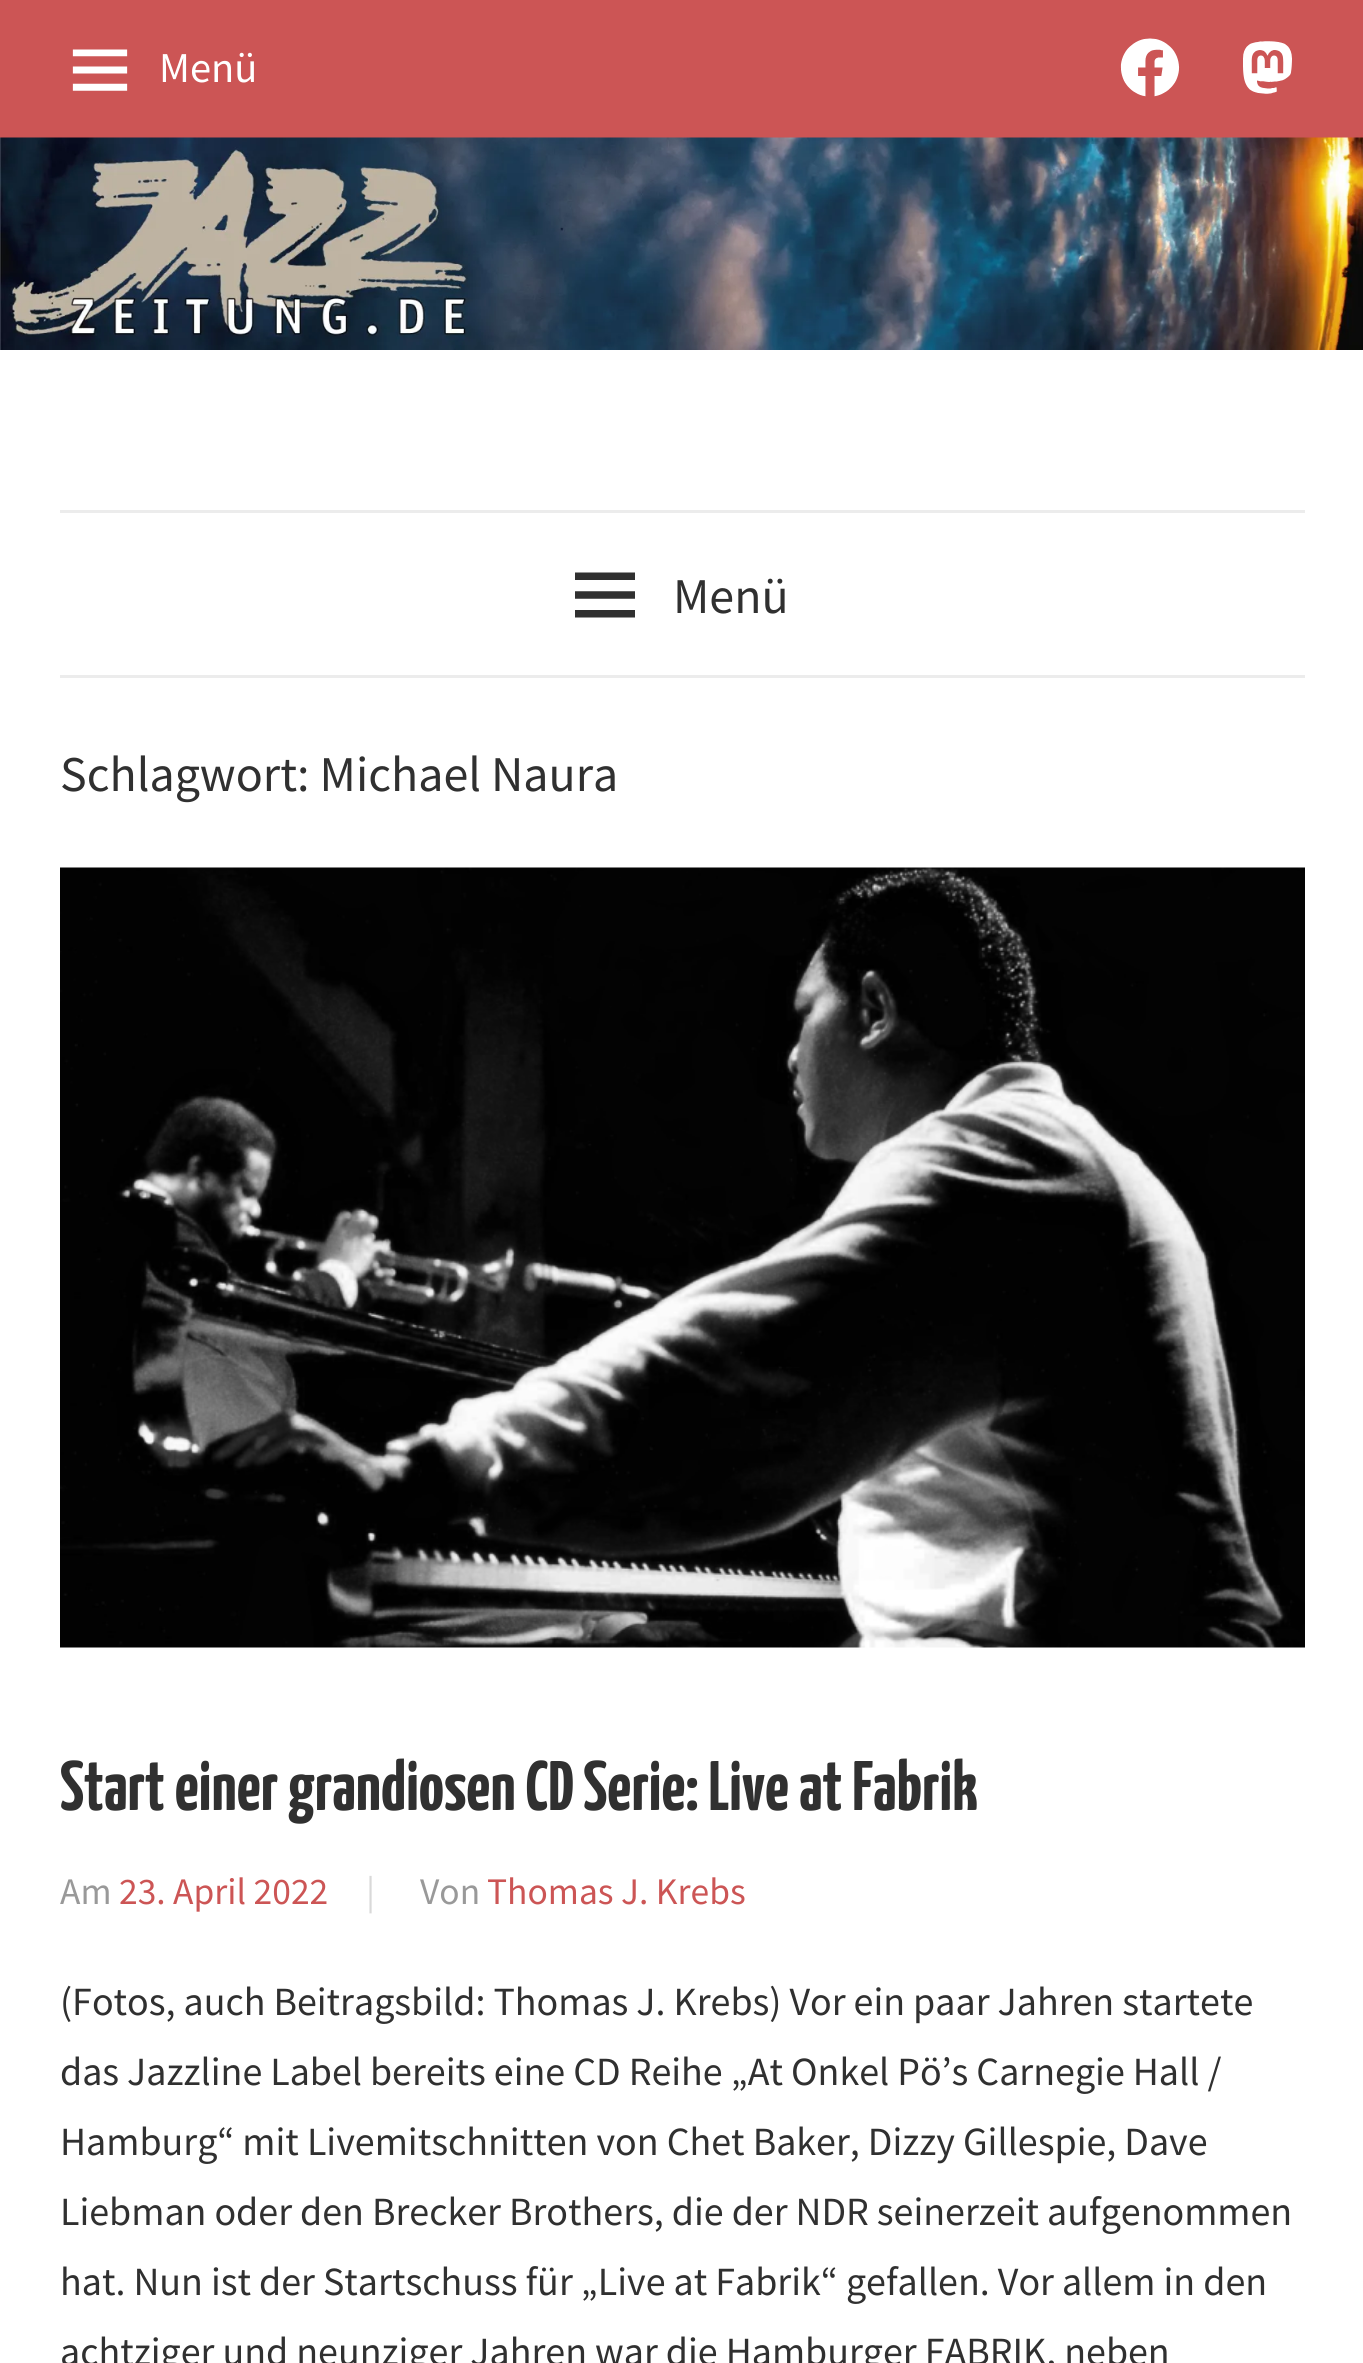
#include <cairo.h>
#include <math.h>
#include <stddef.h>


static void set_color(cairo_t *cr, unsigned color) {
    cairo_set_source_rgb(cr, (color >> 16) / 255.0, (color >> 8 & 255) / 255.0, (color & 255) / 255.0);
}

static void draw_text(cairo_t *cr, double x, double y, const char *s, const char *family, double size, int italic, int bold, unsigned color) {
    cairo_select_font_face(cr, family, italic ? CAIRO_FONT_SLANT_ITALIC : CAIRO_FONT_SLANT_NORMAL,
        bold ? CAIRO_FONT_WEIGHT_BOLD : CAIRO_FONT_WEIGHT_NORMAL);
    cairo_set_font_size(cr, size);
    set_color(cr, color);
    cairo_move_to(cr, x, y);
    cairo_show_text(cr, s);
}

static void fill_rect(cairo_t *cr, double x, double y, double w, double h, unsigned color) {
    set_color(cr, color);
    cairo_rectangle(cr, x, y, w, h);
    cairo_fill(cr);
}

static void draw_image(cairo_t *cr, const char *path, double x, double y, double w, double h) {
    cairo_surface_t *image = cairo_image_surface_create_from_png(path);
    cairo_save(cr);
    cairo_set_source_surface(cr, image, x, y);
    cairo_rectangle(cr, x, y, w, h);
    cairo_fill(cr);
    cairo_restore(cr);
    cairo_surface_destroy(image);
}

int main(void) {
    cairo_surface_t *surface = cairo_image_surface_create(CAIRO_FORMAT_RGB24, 1363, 2363);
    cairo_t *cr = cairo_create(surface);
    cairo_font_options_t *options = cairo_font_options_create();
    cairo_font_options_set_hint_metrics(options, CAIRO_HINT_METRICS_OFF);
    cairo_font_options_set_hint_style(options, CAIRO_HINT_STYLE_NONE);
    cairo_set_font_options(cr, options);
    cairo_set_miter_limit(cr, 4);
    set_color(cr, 0xFFFFFF);
    cairo_paint(cr);
    fill_rect(cr, 0, 0, 1363, 138, 0xCC5555);
    draw_image(cr, "assets/img1.png", 72, 49, 56, 42);
    draw_text(cr, 159, 82, "Menü", "Source Sans Pro", 42.5, 0, 0, 0xFFFFFF);
    draw_image(cr, "assets/img2.png", 1120, 38, 60, 59);
    draw_image(cr, "assets/img3.png", 1243, 41, 49, 53);
    draw_image(cr, "assets/img4.png", 0, 137, 1363, 213);
    fill_rect(cr, 60, 675, 1245, 3, 0xECECEC);
    fill_rect(cr, 60, 510, 1245, 3, 0xECECEC);
    draw_image(cr, "assets/img5.png", 575, 572, 60, 46);
    draw_text(cr, 673, 613, "Menü", "Source Sans Pro", 50, 0, 0, 0x303030);
    draw_text(cr, 60, 791, "Schlagwort: Michael Naura", "Source Sans Pro", 50, 0, 0, 0x303030);
    draw_image(cr, "assets/img6.png", 60, 867, 1245, 781);
    draw_text(cr, 60, 1810, "Start einer grandiosen CD Serie: Live at Fabrik", "Yanone Kaffeesatz", 70, 0, 1, 0x303030);
    draw_text(cr, 60, 1904, "Am", "Source Sans Pro", 37.5, 0, 0, 0x999999);
    draw_text(cr, 119, 1904, "23. April 2022", "Source Sans Pro", 37.5, 0, 0, 0xCC5555);
    draw_text(cr, 366, 1904, "|", "Source Sans Pro", 37.5, 0, 0, 0xD9D9D9);
    draw_text(cr, 420, 1904, "Von", "Source Sans Pro", 37.5, 0, 0, 0x999999);
    draw_text(cr, 487, 1904, "Thomas J. Krebs", "Source Sans Pro", 37.5, 0, 0, 0xCC5555);
    draw_text(cr, 60, 2015, "(Fotos, auch Beitragsbild: Thomas J. Krebs) Vor ein paar Jahren startete", "Source Sans Pro", 40, 0, 0, 0x303030);
    draw_text(cr, 60, 2085, "das Jazzline Label bereits eine CD Reihe „At Onkel Pö’s Carnegie Hall /", "Source Sans Pro", 40, 0, 0, 0x303030);
    draw_text(cr, 60, 2155, "Hamburg“ mit Livemitschnitten von Chet Baker, Dizzy Gillespie, Dave", "Source Sans Pro", 40, 0, 0, 0x303030);
    draw_text(cr, 60, 2225, "Liebman oder den Brecker Brothers, die der NDR seinerzeit aufgenommen", "Source Sans Pro", 40, 0, 0, 0x303030);
    draw_text(cr, 60, 2295, "hat. Nun ist der Startschuss für „Live at Fabrik“ gefallen. Vor allem in den", "Source Sans Pro", 40, 0, 0, 0x303030);
    draw_text(cr, 60, 2365, "achtziger und neunziger Jahren war die Hamburger FABRIK, neben", "Source Sans Pro", 40, 0, 0, 0x303030);
    cairo_surface_write_to_png(surface, "output.png");
    cairo_font_options_destroy(options);
    cairo_destroy(cr);
    cairo_surface_destroy(surface);
    return 0;
}
